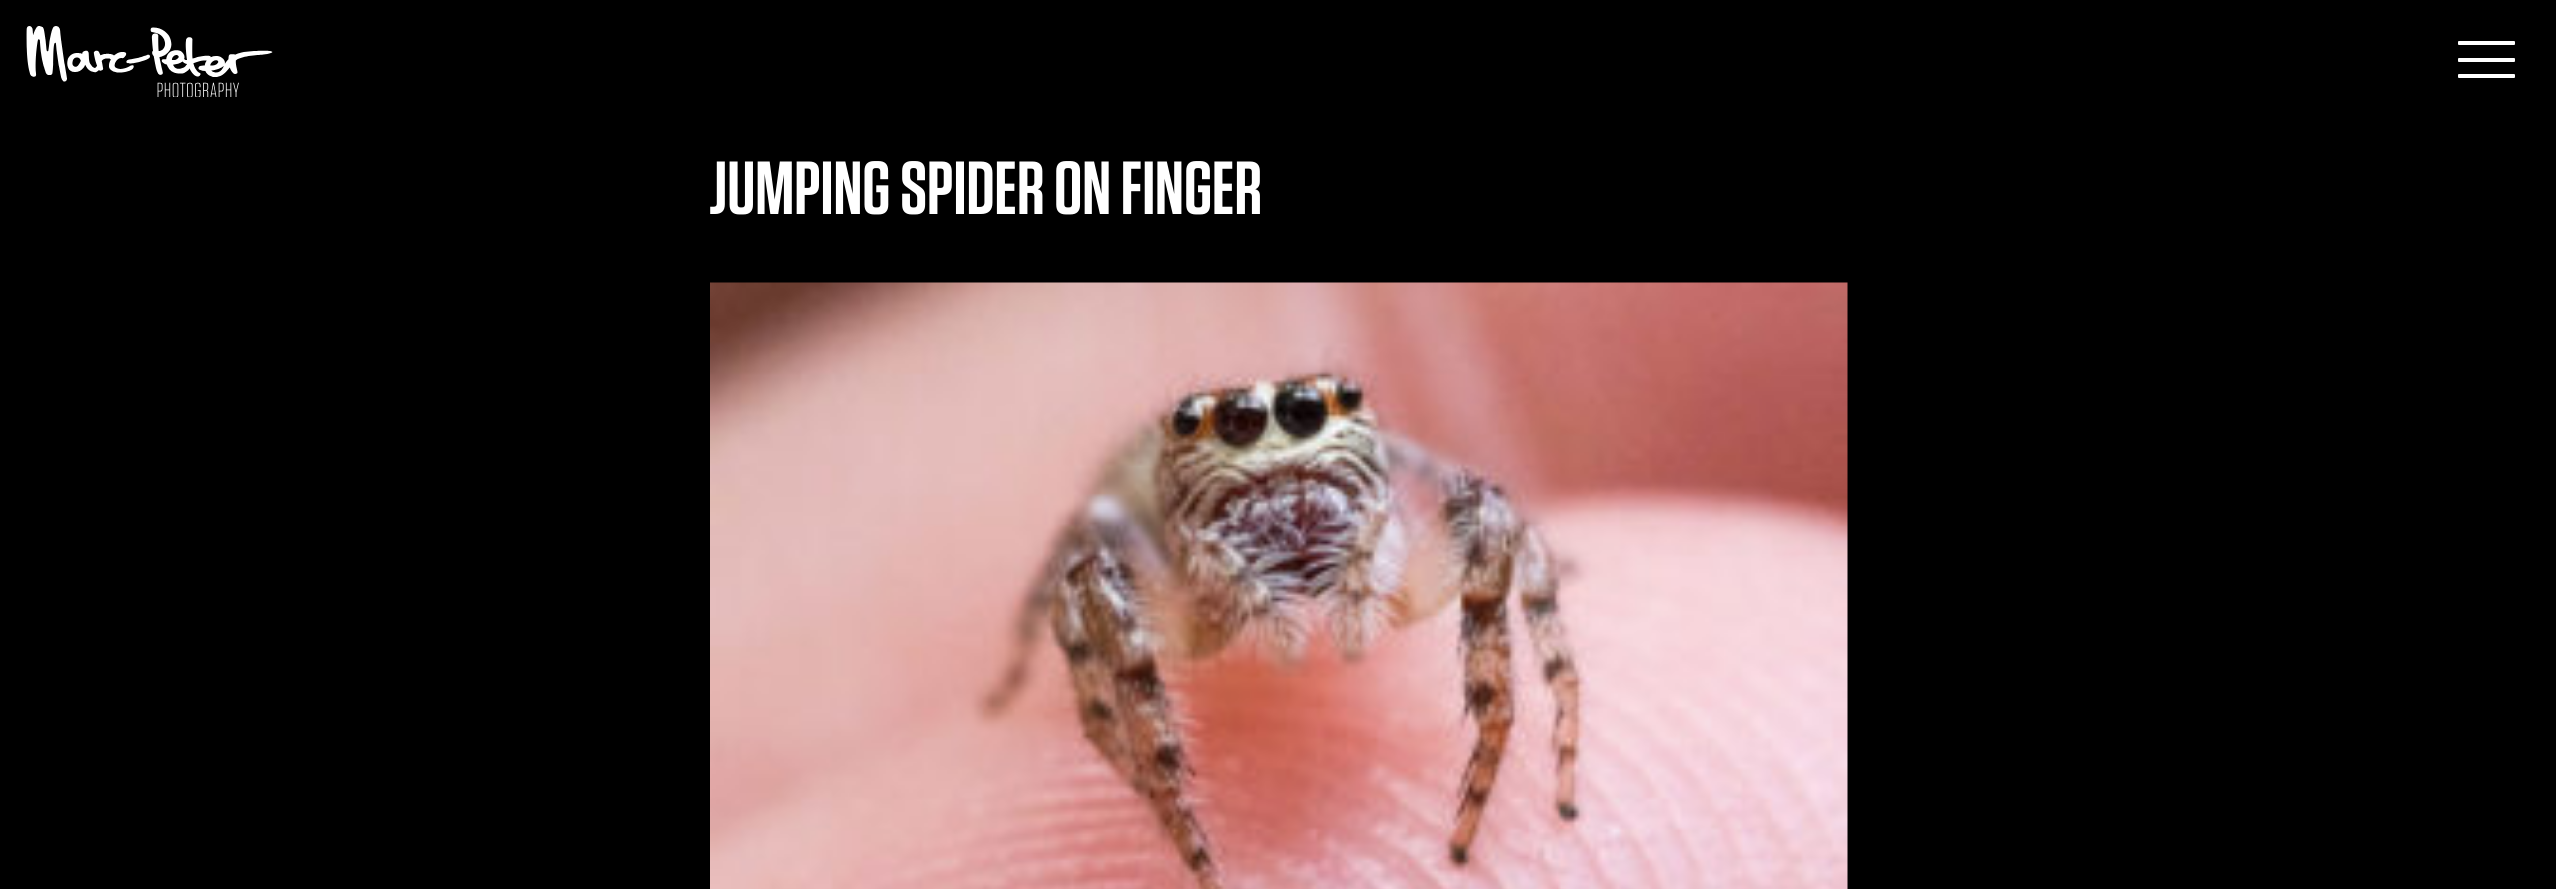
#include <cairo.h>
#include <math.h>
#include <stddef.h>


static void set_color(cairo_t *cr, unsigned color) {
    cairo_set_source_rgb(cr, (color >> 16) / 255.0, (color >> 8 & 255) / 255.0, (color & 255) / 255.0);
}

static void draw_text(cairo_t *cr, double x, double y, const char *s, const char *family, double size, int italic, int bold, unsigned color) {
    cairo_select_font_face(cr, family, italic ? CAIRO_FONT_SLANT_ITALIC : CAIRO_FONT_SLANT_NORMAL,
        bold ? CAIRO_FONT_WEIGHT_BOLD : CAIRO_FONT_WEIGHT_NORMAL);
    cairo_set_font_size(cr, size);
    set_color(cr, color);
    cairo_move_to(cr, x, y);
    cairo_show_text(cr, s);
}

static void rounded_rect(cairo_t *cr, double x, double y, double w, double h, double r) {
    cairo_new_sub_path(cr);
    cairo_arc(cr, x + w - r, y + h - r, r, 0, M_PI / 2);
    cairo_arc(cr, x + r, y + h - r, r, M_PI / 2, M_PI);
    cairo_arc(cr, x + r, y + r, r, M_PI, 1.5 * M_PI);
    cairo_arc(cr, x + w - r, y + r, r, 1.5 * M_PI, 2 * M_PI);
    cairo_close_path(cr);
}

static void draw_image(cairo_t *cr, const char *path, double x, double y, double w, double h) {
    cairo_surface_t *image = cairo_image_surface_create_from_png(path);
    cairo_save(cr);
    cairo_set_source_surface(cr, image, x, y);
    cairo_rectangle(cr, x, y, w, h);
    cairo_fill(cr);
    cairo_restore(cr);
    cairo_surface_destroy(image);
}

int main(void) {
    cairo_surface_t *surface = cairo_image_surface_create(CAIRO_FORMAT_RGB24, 2556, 889);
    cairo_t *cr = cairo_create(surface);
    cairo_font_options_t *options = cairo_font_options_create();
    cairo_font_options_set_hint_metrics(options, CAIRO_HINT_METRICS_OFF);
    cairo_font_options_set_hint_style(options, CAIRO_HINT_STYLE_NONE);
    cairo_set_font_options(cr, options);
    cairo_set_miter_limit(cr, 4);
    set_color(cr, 0x000000);
    cairo_paint(cr);
    draw_image(cr, "assets/img1.png", 26, 26, 247, 71);
    set_color(cr, 0xFFFFFF);
    rounded_rect(cr, 2458, 58, 57, 4, 1);
    cairo_fill(cr);
    rounded_rect(cr, 2458, 41, 57, 4, 1);
    cairo_fill(cr);
    rounded_rect(cr, 2458, 74, 57, 4, 1);
    cairo_fill(cr);
    draw_text(cr, 709, 214, "JUMPING SPIDER ON FINGER", "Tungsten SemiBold", 75, 0, 0, 0xFFFFFF);
    draw_image(cr, "assets/img2.png", 710, 282, 1138, 607);
    cairo_surface_write_to_png(surface, "output.png");
    cairo_font_options_destroy(options);
    cairo_destroy(cr);
    cairo_surface_destroy(surface);
    return 0;
}
